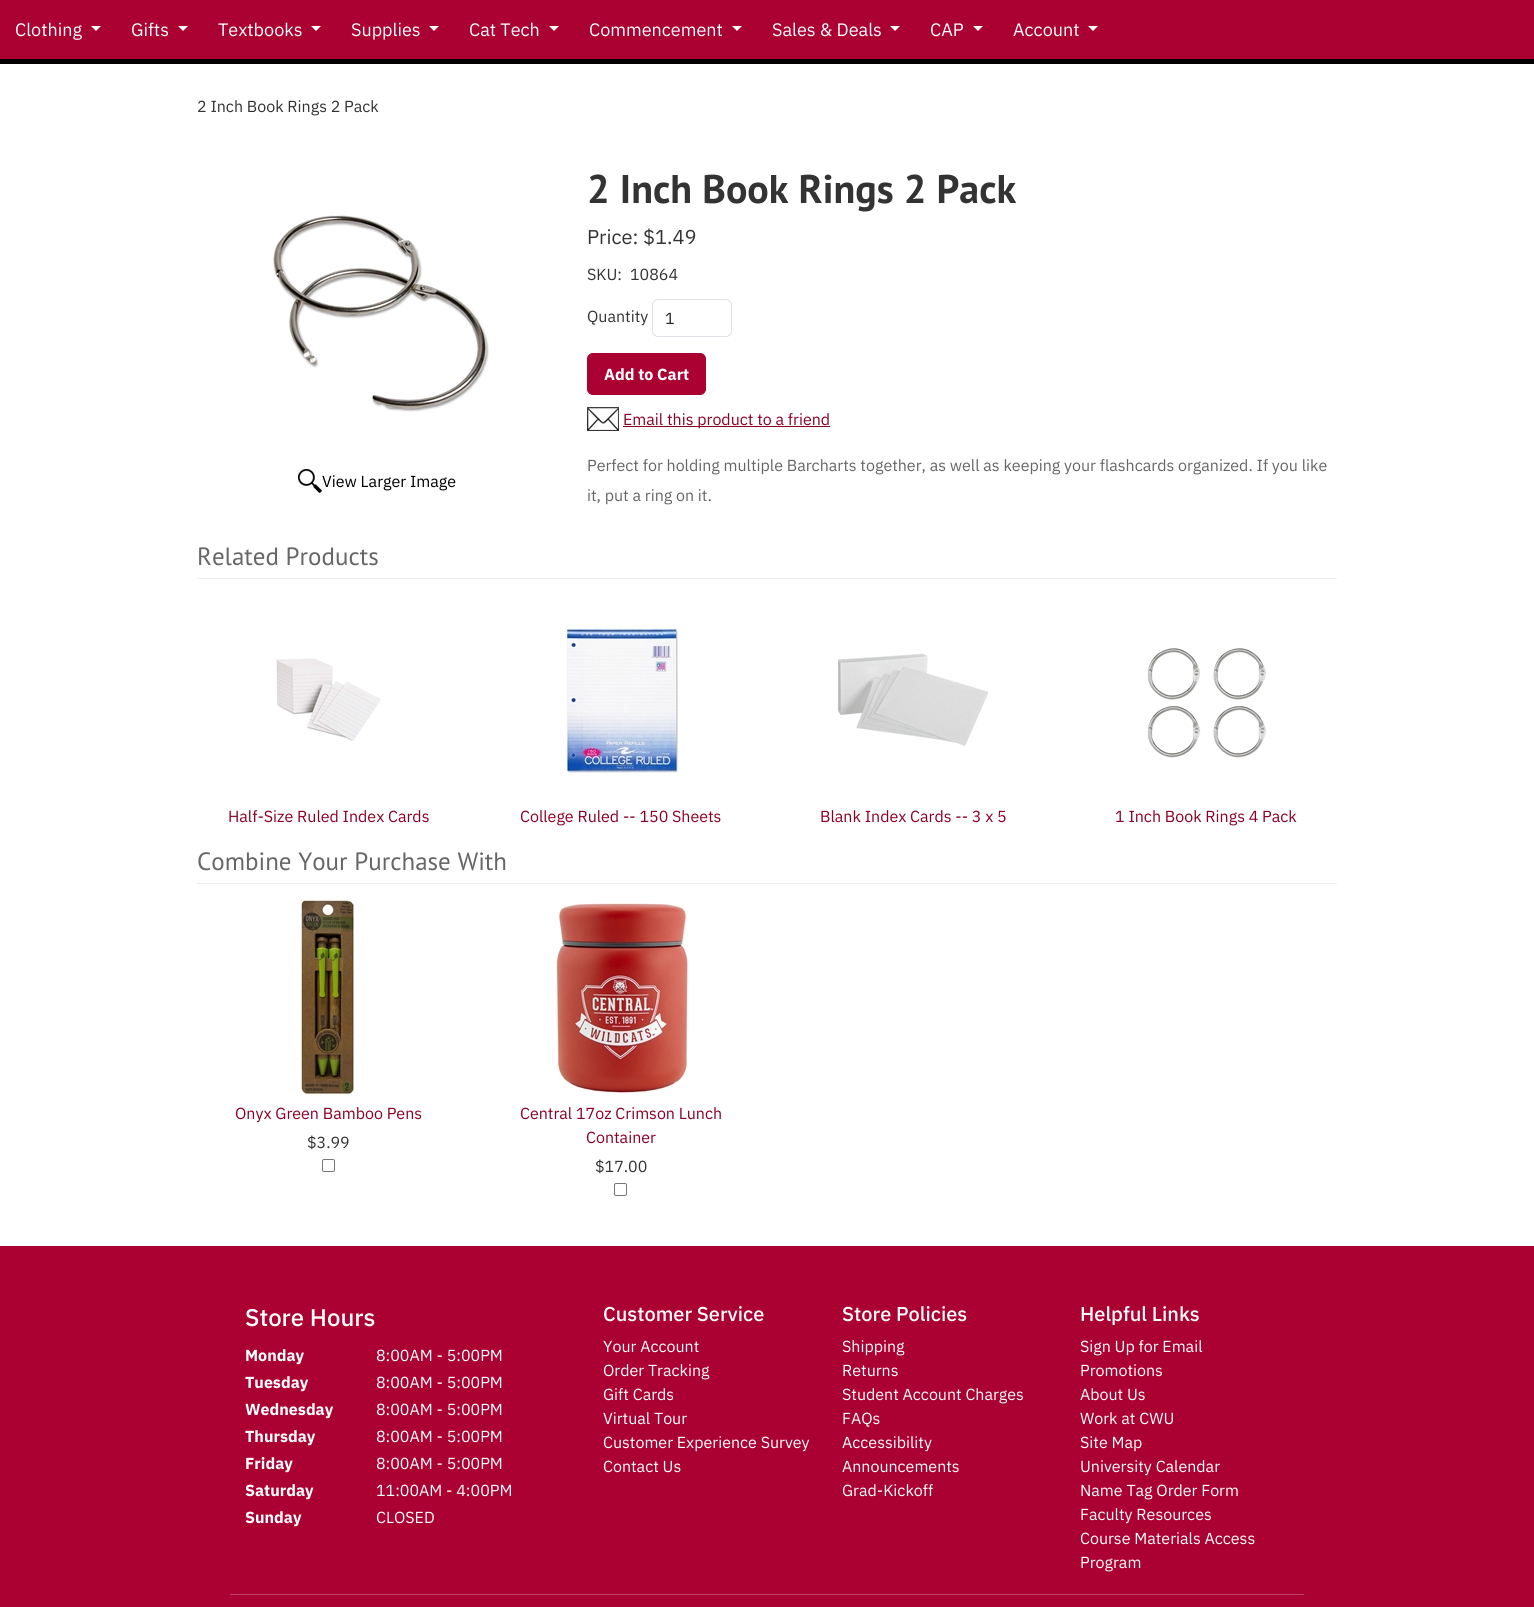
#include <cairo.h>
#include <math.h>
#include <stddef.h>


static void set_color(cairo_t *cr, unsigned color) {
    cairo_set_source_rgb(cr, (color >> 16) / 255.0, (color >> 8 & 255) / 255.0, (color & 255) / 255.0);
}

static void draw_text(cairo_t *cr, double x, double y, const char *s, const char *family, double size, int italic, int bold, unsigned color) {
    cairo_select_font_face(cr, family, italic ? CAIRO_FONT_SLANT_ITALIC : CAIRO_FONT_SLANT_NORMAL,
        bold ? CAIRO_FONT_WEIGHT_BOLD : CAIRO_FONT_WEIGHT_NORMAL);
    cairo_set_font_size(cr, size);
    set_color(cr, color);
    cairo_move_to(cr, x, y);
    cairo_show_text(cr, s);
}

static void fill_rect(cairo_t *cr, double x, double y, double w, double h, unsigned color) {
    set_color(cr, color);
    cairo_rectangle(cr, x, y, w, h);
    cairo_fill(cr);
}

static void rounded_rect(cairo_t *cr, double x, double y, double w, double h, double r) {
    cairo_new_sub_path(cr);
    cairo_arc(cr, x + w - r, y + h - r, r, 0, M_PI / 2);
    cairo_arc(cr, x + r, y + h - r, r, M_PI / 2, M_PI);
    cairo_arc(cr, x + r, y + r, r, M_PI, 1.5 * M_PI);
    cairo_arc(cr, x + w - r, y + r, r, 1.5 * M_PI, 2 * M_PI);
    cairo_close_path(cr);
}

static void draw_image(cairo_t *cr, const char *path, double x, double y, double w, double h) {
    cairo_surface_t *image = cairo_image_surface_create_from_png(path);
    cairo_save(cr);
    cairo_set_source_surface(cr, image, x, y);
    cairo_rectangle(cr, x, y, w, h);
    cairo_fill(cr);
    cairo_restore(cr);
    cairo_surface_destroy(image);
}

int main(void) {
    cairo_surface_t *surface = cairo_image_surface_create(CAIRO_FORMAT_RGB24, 1534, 1607);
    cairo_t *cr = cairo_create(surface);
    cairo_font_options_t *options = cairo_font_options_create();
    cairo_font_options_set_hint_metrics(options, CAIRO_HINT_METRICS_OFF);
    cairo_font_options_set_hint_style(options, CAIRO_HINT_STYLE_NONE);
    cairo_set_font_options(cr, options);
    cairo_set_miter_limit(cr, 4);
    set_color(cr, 0xFFFFFF);
    cairo_paint(cr);
    fill_rect(cr, 0, 0, 1534, 59, 0xAB0032);
    draw_text(cr, 15, 36, "Clothing", "IBM Plex Sans", 18, 0, 0, 0xFFFFFF);
    cairo_new_path(cr);
    cairo_move_to(cr, 91, 26);
    cairo_line_to(cr, 101, 26);
    cairo_line_to(cr, 96, 31);
    cairo_close_path(cr);
    cairo_fill(cr);
    draw_text(cr, 131, 36, "Gifts", "IBM Plex Sans", 18, 0, 0, 0xFFFFFF);
    cairo_new_path(cr);
    cairo_move_to(cr, 178, 26);
    cairo_line_to(cr, 188, 26);
    cairo_line_to(cr, 183, 31);
    cairo_close_path(cr);
    cairo_fill(cr);
    draw_text(cr, 218, 36, "Textbooks", "IBM Plex Sans", 18, 0, 0, 0xFFFFFF);
    cairo_new_path(cr);
    cairo_move_to(cr, 311, 26);
    cairo_line_to(cr, 321, 26);
    cairo_line_to(cr, 316, 31);
    cairo_close_path(cr);
    cairo_fill(cr);
    draw_text(cr, 351, 36, "Supplies", "IBM Plex Sans", 18, 0, 0, 0xFFFFFF);
    cairo_new_path(cr);
    cairo_move_to(cr, 429, 26);
    cairo_line_to(cr, 439, 26);
    cairo_line_to(cr, 434, 31);
    cairo_close_path(cr);
    cairo_fill(cr);
    draw_text(cr, 469, 36, "Cat Tech", "IBM Plex Sans", 18, 0, 0, 0xFFFFFF);
    cairo_new_path(cr);
    cairo_move_to(cr, 549, 26);
    cairo_line_to(cr, 559, 26);
    cairo_line_to(cr, 554, 31);
    cairo_close_path(cr);
    cairo_fill(cr);
    draw_text(cr, 589, 36, "Commencement", "IBM Plex Sans", 18, 0, 0, 0xFFFFFF);
    cairo_new_path(cr);
    cairo_move_to(cr, 732, 26);
    cairo_line_to(cr, 742, 26);
    cairo_line_to(cr, 737, 31);
    cairo_close_path(cr);
    cairo_fill(cr);
    draw_text(cr, 772, 36, "Sales & Deals", "IBM Plex Sans", 18, 0, 0, 0xFFFFFF);
    cairo_new_path(cr);
    cairo_move_to(cr, 890, 26);
    cairo_line_to(cr, 900, 26);
    cairo_line_to(cr, 895, 31);
    cairo_close_path(cr);
    cairo_fill(cr);
    draw_text(cr, 930, 36, "CAP", "IBM Plex Sans", 18, 0, 0, 0xFFFFFF);
    cairo_new_path(cr);
    cairo_move_to(cr, 973, 26);
    cairo_line_to(cr, 983, 26);
    cairo_line_to(cr, 978, 31);
    cairo_close_path(cr);
    cairo_fill(cr);
    draw_text(cr, 1013, 36, "Account", "IBM Plex Sans", 18, 0, 0, 0xFFFFFF);
    cairo_new_path(cr);
    cairo_move_to(cr, 1088, 26);
    cairo_line_to(cr, 1098, 26);
    cairo_line_to(cr, 1093, 31);
    cairo_close_path(cr);
    cairo_fill(cr);
    fill_rect(cr, 0, 59, 1534, 5, 0x000000);
    draw_text(cr, 197, 112, "2 Inch Book Rings 2 Pack", "IBM Plex Sans", 16, 0, 0, 0x333333);
    draw_image(cr, "assets/img1.png", 272, 215, 217, 197);
    draw_image(cr, "assets/img2.png", 298, 469, 24, 24);
    draw_text(cr, 322, 487, "View Larger Image", "IBM Plex Sans", 16, 0, 0, 0x000000);
    draw_text(cr, 587, 203, "2 Inch Book Rings 2 Pack", "PT Sans", 40, 0, 1, 0x333333);
    draw_text(cr, 587, 244, "Price: $1.49", "IBM Plex Sans", 20, 0, 0, 0x333333);
    draw_text(cr, 587, 280, "SKU:", "IBM Plex Sans", 16, 0, 0, 0x333333);
    draw_text(cr, 630, 280, "10864", "IBM Plex Sans", 16, 0, 0, 0x333333);
    draw_text(cr, 587, 322, "Quantity", "IBM Plex Sans", 16, 0, 0, 0x333333);
    rounded_rect(cr, 652.5, 299.5, 79, 37, 5.5);
    set_color(cr, 0xDEE2E6);
    cairo_set_line_width(cr, 1);
    cairo_stroke(cr);
    draw_text(cr, 665, 324, "1", "IBM Plex Sans", 16, 0, 0, 0x212529);
    set_color(cr, 0xAB0032);
    rounded_rect(cr, 587.5, 353.5, 118, 41, 5.5);
    cairo_fill_preserve(cr);
    cairo_stroke(cr);
    draw_text(cr, 604, 380, "Add to Cart", "IBM Plex Sans", 16, 0, 1, 0xFFFFFF);
    draw_image(cr, "assets/img3.png", 587, 407, 32, 24);
    fill_rect(cr, 623, 426, 207, 1, 0x8B0025);
    draw_text(cr, 623, 425, "Email this product to a friend", "IBM Plex Sans", 16, 0, 0, 0x8B0025);
    draw_text(cr, 587, 471, "Perfect for holding multiple Barcharts together, as well as keeping your flashcards organized. If you like", "IBM Plex Sans", 16, 0, 0, 0x666666);
    draw_text(cr, 587, 501, "it, put a ring on it.", "IBM Plex Sans", 16, 0, 0, 0x666666);
    fill_rect(cr, 197, 578, 1140, 1, 0xEFEFEF);
    draw_text(cr, 197, 565, "Related Products", "PT Sans", 25, 0, 0, 0x666666);
    draw_image(cr, "assets/img4.png", 276, 658, 105, 83);
    draw_text(cr, 228, 822, "Half-Size Ruled Index Cards", "IBM Plex Sans", 16, 0, 0, 0x8B0025);
    draw_image(cr, "assets/img5.png", 565, 625, 114, 148);
    draw_text(cr, 520, 822, "College Ruled -- 150 Sheets", "IBM Plex Sans", 16, 0, 0, 0x8B0025);
    draw_image(cr, "assets/img6.png", 838, 653, 150, 93);
    draw_text(cr, 820, 822, "Blank Index Cards -- 3 x 5", "IBM Plex Sans", 16, 0, 0, 0x8B0025);
    draw_image(cr, "assets/img7.png", 1147, 648, 119, 110);
    draw_text(cr, 1115, 822, "1 Inch Book Rings 4 Pack", "IBM Plex Sans", 16, 0, 0, 0x8B0025);
    fill_rect(cr, 197, 883, 1140, 1, 0xEFEFEF);
    draw_text(cr, 197, 870, "Combine Your Purchase With", "PT Sans", 25, 0, 0, 0x666666);
    draw_image(cr, "assets/img8.png", 300, 899, 55, 196);
    draw_text(cr, 235, 1119, "Onyx Green Bamboo Pens", "IBM Plex Sans", 16, 0, 0, 0x8B0025);
    draw_text(cr, 307, 1148, "$3.99", "IBM Plex Sans", 16, 0, 0, 0x333333);
    rounded_rect(cr, 322.5, 1159.5, 12, 12, 1.5);
    set_color(cr, 0x767676);
    cairo_stroke(cr);
    draw_image(cr, "assets/img9.png", 555, 903, 134, 190);
    draw_text(cr, 520, 1119, "Central 17oz Crimson Lunch", "IBM Plex Sans", 16, 0, 0, 0x8B0025);
    draw_text(cr, 586, 1143, "Container", "IBM Plex Sans", 16, 0, 0, 0x8B0025);
    draw_text(cr, 595, 1172, "$17.00", "IBM Plex Sans", 16, 0, 0, 0x333333);
    rounded_rect(cr, 614.5, 1183.5, 12, 12, 1.5);
    set_color(cr, 0x767676);
    cairo_stroke(cr);
    fill_rect(cr, 0, 1246, 1534, 361, 0xAB0032);
    draw_text(cr, 245, 1326, "Store Hours", "IBM Plex Sans Medium", 24, 0, 0, 0xFFFFFF);
    draw_text(cr, 245, 1361, "Monday", "IBM Plex Sans", 16, 0, 1, 0xFFFFFF);
    draw_text(cr, 376, 1361, "8:00AM - 5:00PM", "IBM Plex Sans", 16, 0, 0, 0xFFFFFF);
    draw_text(cr, 245, 1388, "Tuesday", "IBM Plex Sans", 16, 0, 1, 0xFFFFFF);
    draw_text(cr, 376, 1388, "8:00AM - 5:00PM", "IBM Plex Sans", 16, 0, 0, 0xFFFFFF);
    draw_text(cr, 245, 1415, "Wednesday", "IBM Plex Sans", 16, 0, 1, 0xFFFFFF);
    draw_text(cr, 376, 1415, "8:00AM - 5:00PM", "IBM Plex Sans", 16, 0, 0, 0xFFFFFF);
    draw_text(cr, 245, 1442, "Thursday", "IBM Plex Sans", 16, 0, 1, 0xFFFFFF);
    draw_text(cr, 376, 1442, "8:00AM - 5:00PM", "IBM Plex Sans", 16, 0, 0, 0xFFFFFF);
    draw_text(cr, 245, 1469, "Friday", "IBM Plex Sans", 16, 0, 1, 0xFFFFFF);
    draw_text(cr, 376, 1469, "8:00AM - 5:00PM", "IBM Plex Sans", 16, 0, 0, 0xFFFFFF);
    draw_text(cr, 245, 1496, "Saturday", "IBM Plex Sans", 16, 0, 1, 0xFFFFFF);
    draw_text(cr, 376, 1496, "11:00AM - 4:00PM", "IBM Plex Sans", 16, 0, 0, 0xFFFFFF);
    draw_text(cr, 245, 1523, "Sunday", "IBM Plex Sans", 16, 0, 1, 0xFFFFFF);
    draw_text(cr, 376, 1523, "CLOSED", "IBM Plex Sans", 16, 0, 0, 0xFFFFFF);
    draw_text(cr, 603, 1321, "Customer Service", "IBM Plex Sans Medium", 20, 0, 0, 0xFFFFFF);
    draw_text(cr, 603, 1352, "Your Account", "IBM Plex Sans", 16, 0, 0, 0xFFFFFF);
    draw_text(cr, 603, 1376, "Order Tracking", "IBM Plex Sans", 16, 0, 0, 0xFFFFFF);
    draw_text(cr, 603, 1400, "Gift Cards", "IBM Plex Sans", 16, 0, 0, 0xFFFFFF);
    draw_text(cr, 603, 1424, "Virtual Tour", "IBM Plex Sans", 16, 0, 0, 0xFFFFFF);
    draw_text(cr, 603, 1448, "Customer Experience Survey", "IBM Plex Sans", 16, 0, 0, 0xFFFFFF);
    draw_text(cr, 603, 1472, "Contact Us", "IBM Plex Sans", 16, 0, 0, 0xFFFFFF);
    draw_text(cr, 842, 1321, "Store Policies", "IBM Plex Sans Medium", 20, 0, 0, 0xFFFFFF);
    draw_text(cr, 842, 1352, "Shipping", "IBM Plex Sans", 16, 0, 0, 0xFFFFFF);
    draw_text(cr, 842, 1376, "Returns", "IBM Plex Sans", 16, 0, 0, 0xFFFFFF);
    draw_text(cr, 842, 1400, "Student Account Charges", "IBM Plex Sans", 16, 0, 0, 0xFFFFFF);
    draw_text(cr, 842, 1424, "FAQs", "IBM Plex Sans", 16, 0, 0, 0xFFFFFF);
    draw_text(cr, 842, 1448, "Accessibility", "IBM Plex Sans", 16, 0, 0, 0xFFFFFF);
    draw_text(cr, 842, 1472, "Announcements", "IBM Plex Sans", 16, 0, 0, 0xFFFFFF);
    draw_text(cr, 842, 1496, "Grad-Kickoff", "IBM Plex Sans", 16, 0, 0, 0xFFFFFF);
    draw_text(cr, 1080, 1321, "Helpful Links", "IBM Plex Sans Medium", 20, 0, 0, 0xFFFFFF);
    draw_text(cr, 1080, 1352, "Sign Up for Email", "IBM Plex Sans", 16, 0, 0, 0xFFFFFF);
    draw_text(cr, 1080, 1376, "Promotions", "IBM Plex Sans", 16, 0, 0, 0xFFFFFF);
    draw_text(cr, 1080, 1400, "About Us", "IBM Plex Sans", 16, 0, 0, 0xFFFFFF);
    draw_text(cr, 1080, 1424, "Work at CWU", "IBM Plex Sans", 16, 0, 0, 0xFFFFFF);
    draw_text(cr, 1080, 1448, "Site Map", "IBM Plex Sans", 16, 0, 0, 0xFFFFFF);
    draw_text(cr, 1080, 1472, "University Calendar", "IBM Plex Sans", 16, 0, 0, 0xFFFFFF);
    draw_text(cr, 1080, 1496, "Name Tag Order Form", "IBM Plex Sans", 16, 0, 0, 0xFFFFFF);
    draw_text(cr, 1080, 1520, "Faculty Resources", "IBM Plex Sans", 16, 0, 0, 0xFFFFFF);
    draw_text(cr, 1080, 1544, "Course Materials Access", "IBM Plex Sans", 16, 0, 0, 0xFFFFFF);
    draw_text(cr, 1080, 1568, "Program", "IBM Plex Sans", 16, 0, 0, 0xFFFFFF);
    fill_rect(cr, 230, 1594, 1074, 1, 0xC04065);
    cairo_surface_write_to_png(surface, "output.png");
    cairo_font_options_destroy(options);
    cairo_destroy(cr);
    cairo_surface_destroy(surface);
    return 0;
}
